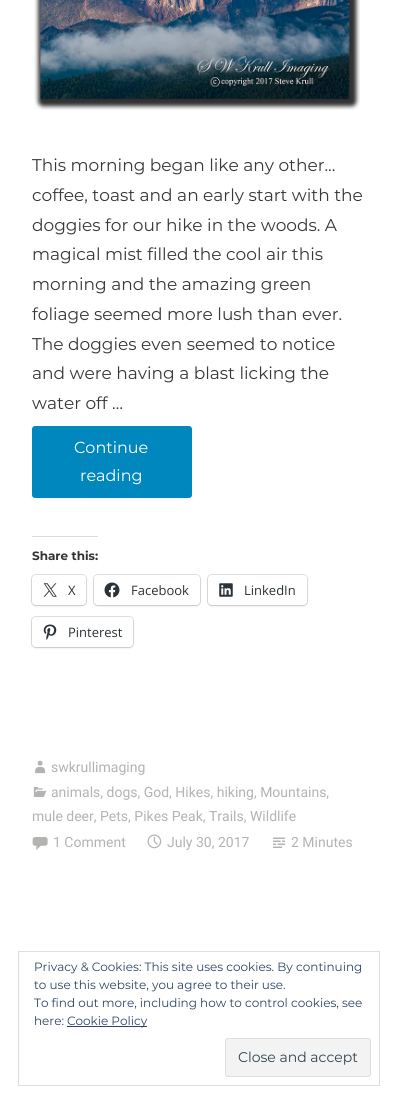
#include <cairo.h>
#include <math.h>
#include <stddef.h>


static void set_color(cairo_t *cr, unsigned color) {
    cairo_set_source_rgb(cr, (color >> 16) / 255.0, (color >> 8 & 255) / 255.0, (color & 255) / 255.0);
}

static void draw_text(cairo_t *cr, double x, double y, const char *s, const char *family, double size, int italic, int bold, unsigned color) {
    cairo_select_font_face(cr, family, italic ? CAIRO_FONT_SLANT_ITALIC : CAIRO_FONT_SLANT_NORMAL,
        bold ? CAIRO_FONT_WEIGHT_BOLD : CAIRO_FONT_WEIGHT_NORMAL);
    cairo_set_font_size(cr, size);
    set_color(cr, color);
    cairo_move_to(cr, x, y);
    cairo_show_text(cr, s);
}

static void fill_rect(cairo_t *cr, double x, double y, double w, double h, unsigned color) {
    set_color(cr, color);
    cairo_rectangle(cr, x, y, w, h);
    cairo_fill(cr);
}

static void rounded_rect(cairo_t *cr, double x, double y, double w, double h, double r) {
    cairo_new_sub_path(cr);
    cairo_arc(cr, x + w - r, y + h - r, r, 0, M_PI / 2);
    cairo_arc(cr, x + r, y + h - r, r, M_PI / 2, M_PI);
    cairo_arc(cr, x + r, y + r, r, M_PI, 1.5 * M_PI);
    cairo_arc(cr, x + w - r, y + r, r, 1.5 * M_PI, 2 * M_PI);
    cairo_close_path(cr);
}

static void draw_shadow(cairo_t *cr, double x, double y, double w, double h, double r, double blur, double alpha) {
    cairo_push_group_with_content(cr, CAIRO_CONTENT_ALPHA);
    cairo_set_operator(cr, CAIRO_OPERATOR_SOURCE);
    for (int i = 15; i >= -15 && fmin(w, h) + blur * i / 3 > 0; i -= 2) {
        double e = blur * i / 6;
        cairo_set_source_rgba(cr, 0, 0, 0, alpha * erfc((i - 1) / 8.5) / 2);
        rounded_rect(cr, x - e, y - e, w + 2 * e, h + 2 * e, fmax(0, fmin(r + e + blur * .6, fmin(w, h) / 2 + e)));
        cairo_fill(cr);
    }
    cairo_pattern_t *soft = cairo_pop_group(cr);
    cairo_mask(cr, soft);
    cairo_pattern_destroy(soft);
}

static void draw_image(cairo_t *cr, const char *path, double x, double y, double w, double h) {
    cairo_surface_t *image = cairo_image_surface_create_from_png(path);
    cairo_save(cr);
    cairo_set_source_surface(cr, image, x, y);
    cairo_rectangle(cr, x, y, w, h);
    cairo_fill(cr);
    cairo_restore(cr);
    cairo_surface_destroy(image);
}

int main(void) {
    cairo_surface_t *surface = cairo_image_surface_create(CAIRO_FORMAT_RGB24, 398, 1104);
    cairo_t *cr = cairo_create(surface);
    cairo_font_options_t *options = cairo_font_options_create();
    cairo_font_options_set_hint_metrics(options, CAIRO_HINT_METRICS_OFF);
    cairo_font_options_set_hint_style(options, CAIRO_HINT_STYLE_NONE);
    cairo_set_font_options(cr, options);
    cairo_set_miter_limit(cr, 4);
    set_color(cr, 0xFFFFFF);
    cairo_paint(cr);
    draw_image(cr, "assets/img1.png", 34, 0, 326, 110);
    draw_text(cr, 32, 171, "This morning began like any other...", "Montserrat", 17, 0, 0, 0x383838);
    draw_text(cr, 32, 201, "coffee, toast and an early start with the", "Montserrat", 17, 0, 0, 0x383838);
    draw_text(cr, 32, 231, "doggies for our hike in the woods. A", "Montserrat", 17, 0, 0, 0x383838);
    draw_text(cr, 32, 260, "magical mist filled the cool air this", "Montserrat", 17, 0, 0, 0x383838);
    draw_text(cr, 32, 290, "morning and the amazing green", "Montserrat", 17, 0, 0, 0x383838);
    draw_text(cr, 32, 320, "foliage seemed more lush than ever.", "Montserrat", 17, 0, 0, 0x383838);
    draw_text(cr, 32, 350, "The doggies even seemed to notice", "Montserrat", 17, 0, 0, 0x383838);
    draw_text(cr, 32, 379, "and were having a blast licking the", "Montserrat", 17, 0, 0, 0x383838);
    draw_text(cr, 32, 409, "water off …", "Montserrat", 17, 0, 0, 0x383838);
    set_color(cr, 0x0087BE);
    rounded_rect(cr, 32, 426, 160, 72, 3);
    cairo_fill(cr);
    draw_text(cr, 74, 453, "Continue", "Montserrat", 16, 0, 0, 0xFFFFFF);
    draw_text(cr, 80, 481, "reading", "Montserrat", 16, 0, 0, 0xFFFFFF);
    fill_rect(cr, 32, 536, 66, 1, 0xDCDCDE);
    draw_text(cr, 32, 560, "Share this:", "Montserrat", 12, 0, 1, 0x333332);
    rounded_rect(cr, 31.5, 574.5, 55, 31, 4.5);
    set_color(cr, 0xE0E0E0);
    cairo_set_line_width(cr, 1);
    cairo_stroke(cr);
    set_color(cr, 0x000000);
    draw_shadow(cr, 32, 576, 54, 30, 4, 1, 0.12);
    set_color(cr, 0xFFFFFF);
    rounded_rect(cr, 32, 575, 54, 30, 4);
    cairo_fill(cr);
    draw_image(cr, "assets/img2.png", 43, 583, 14, 14);
    draw_text(cr, 68, 595, "X", "Open Sans", 13, 0, 0, 0x2C3338);
    rounded_rect(cr, 93.5, 574.5, 107, 31, 4.5);
    set_color(cr, 0xE0E0E0);
    cairo_stroke(cr);
    set_color(cr, 0x000000);
    draw_shadow(cr, 94, 576, 106, 30, 4, 1, 0.12);
    set_color(cr, 0xFFFFFF);
    rounded_rect(cr, 94, 575, 106, 30, 4);
    cairo_fill(cr);
    draw_image(cr, "assets/img3.png", 104, 582, 16, 16);
    draw_text(cr, 131, 595, "Facebook", "Open Sans", 13, 0, 0, 0x2C3338);
    rounded_rect(cr, 207.5, 574.5, 100, 31, 4.5);
    set_color(cr, 0xE0E0E0);
    cairo_stroke(cr);
    set_color(cr, 0x000000);
    draw_shadow(cr, 208, 576, 99, 30, 4, 1, 0.12);
    set_color(cr, 0xFFFFFF);
    rounded_rect(cr, 208, 575, 99, 30, 4);
    cairo_fill(cr);
    draw_image(cr, "assets/img4.png", 219, 583, 14, 14);
    draw_text(cr, 244, 595, "LinkedIn", "Open Sans", 13, 0, 0, 0x2C3338);
    rounded_rect(cr, 31.5, 616.5, 102, 31, 4.5);
    set_color(cr, 0xE0E0E0);
    cairo_stroke(cr);
    set_color(cr, 0x000000);
    draw_shadow(cr, 32, 618, 101, 30, 4, 1, 0.12);
    set_color(cr, 0xFFFFFF);
    rounded_rect(cr, 32, 617, 101, 30, 4);
    cairo_fill(cr);
    draw_image(cr, "assets/img5.png", 43, 624, 14, 16);
    draw_text(cr, 68, 637, "Pinterest", "Open Sans", 13, 0, 0, 0x2C3338);
    draw_image(cr, "assets/img6.png", 35, 760, 11, 14);
    draw_text(cr, 51, 772, "swkrullimaging", "Roboto", 14, 0, 0, 0xB3B3B1);
    draw_image(cr, "assets/img7.png", 33, 787, 14, 10);
    draw_text(cr, 51, 797, "animals, dogs, God, Hikes, hiking, Mountains,", "Roboto", 14, 0, 0, 0xB3B3B1);
    draw_text(cr, 32, 821, "mule deer, Pets, Pikes Peak, Trails, Wildlife", "Roboto", 14, 0, 0, 0xB3B3B1);
    draw_image(cr, "assets/img8.png", 32, 837, 16, 13);
    draw_text(cr, 53, 847, "1 Comment", "Roboto", 14, 0, 0, 0xB3B3B1);
    draw_image(cr, "assets/img9.png", 147, 834, 15, 15);
    draw_text(cr, 167, 847, "July 30, 2017", "Roboto", 14, 0, 0, 0xB3B3B1);
    draw_image(cr, "assets/img10.png", 273, 837, 13, 11);
    draw_text(cr, 291, 847, "2 Minutes", "Roboto", 14, 0, 0, 0xB3B3B1);
    cairo_rectangle(cr, 18.5, 951.5, 361, 134);
    set_color(cr, 0xDEDEDE);
    cairo_stroke(cr);
    draw_text(cr, 34, 971, "Privacy & Cookies: This site uses cookies. By continuing", "Montserrat", 12, 0, 0, 0x2E4467);
    draw_text(cr, 34, 989, "to use this website, you agree to their use.", "Montserrat", 12, 0, 0, 0x2E4467);
    draw_text(cr, 34, 1007, "To find out more, including how to control cookies, see", "Montserrat", 12, 0, 0, 0x2E4467);
    draw_text(cr, 34, 1025, "here:", "Montserrat", 12, 0, 0, 0x2E4467);
    fill_rect(cr, 67, 1026, 80, 1, 0x2E4467);
    draw_text(cr, 67, 1025, "Cookie Policy", "Montserrat", 12, 0, 0, 0x2E4467);
    set_color(cr, 0xF3F3F3);
    rounded_rect(cr, 225.5, 1038.5, 145, 38, 2.5);
    cairo_fill_preserve(cr);
    set_color(cr, 0xDEDEDE);
    cairo_stroke(cr);
    draw_text(cr, 238, 1062, "Close and accept", "Montserrat", 14, 0, 0, 0x2E4453);
    cairo_surface_write_to_png(surface, "output.png");
    cairo_font_options_destroy(options);
    cairo_destroy(cr);
    cairo_surface_destroy(surface);
    return 0;
}
